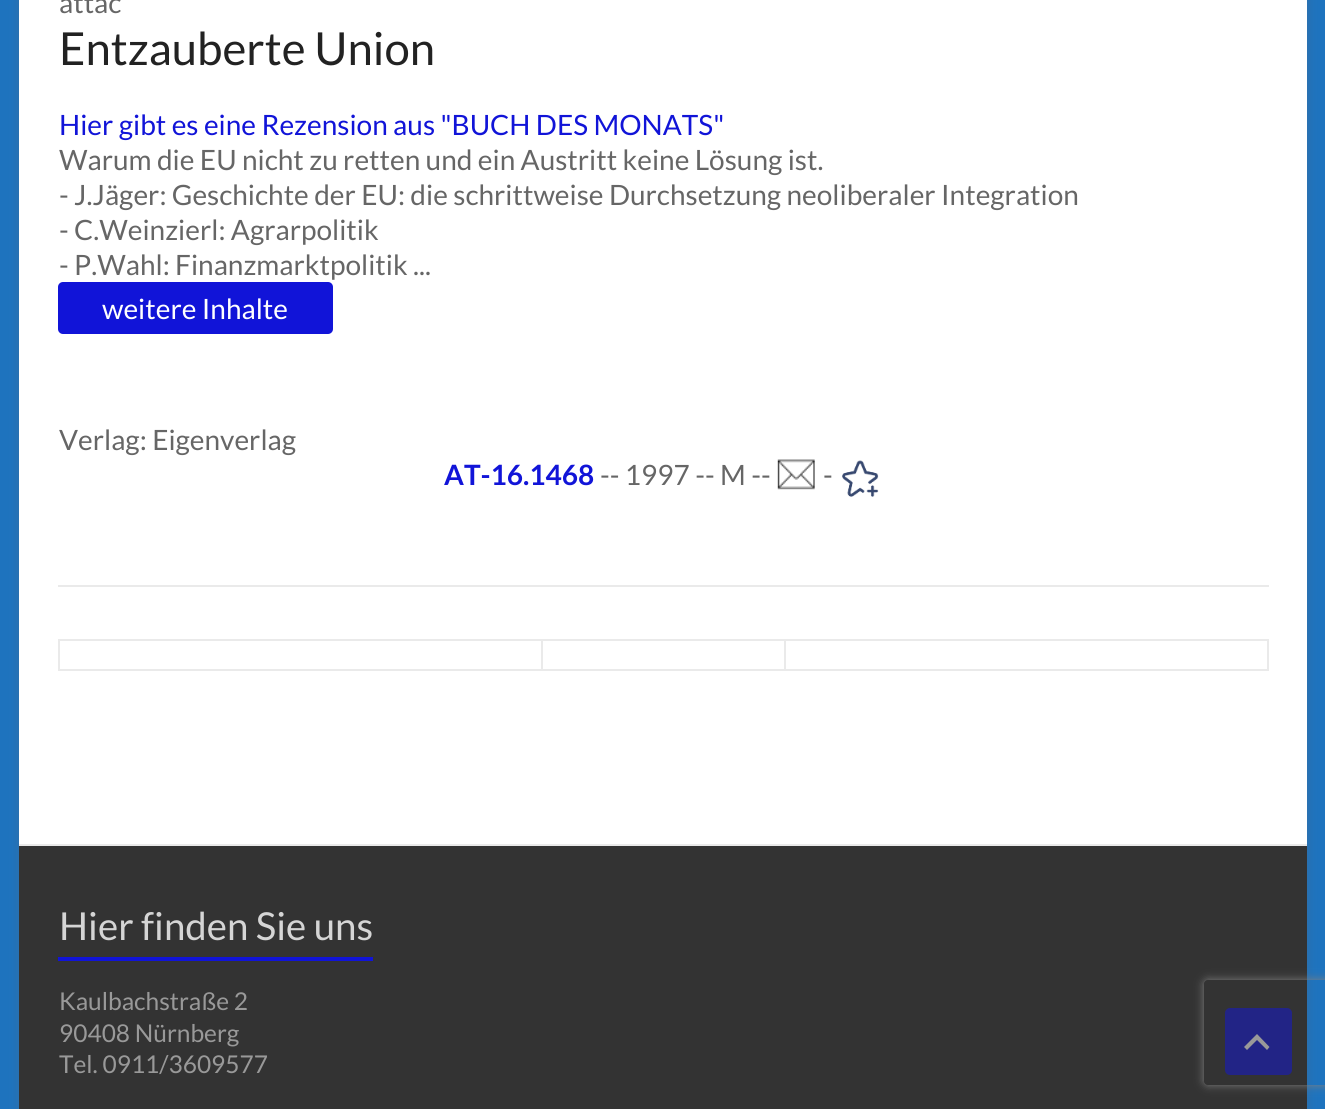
#include <cairo.h>
#include <math.h>
#include <stddef.h>


static void set_color(cairo_t *cr, unsigned color) {
    cairo_set_source_rgb(cr, (color >> 16) / 255.0, (color >> 8 & 255) / 255.0, (color & 255) / 255.0);
}

static void draw_text(cairo_t *cr, double x, double y, const char *s, const char *family, double size, int italic, int bold, unsigned color) {
    cairo_select_font_face(cr, family, italic ? CAIRO_FONT_SLANT_ITALIC : CAIRO_FONT_SLANT_NORMAL,
        bold ? CAIRO_FONT_WEIGHT_BOLD : CAIRO_FONT_WEIGHT_NORMAL);
    cairo_set_font_size(cr, size);
    set_color(cr, color);
    cairo_move_to(cr, x, y);
    cairo_show_text(cr, s);
}

static void fill_rect(cairo_t *cr, double x, double y, double w, double h, unsigned color) {
    set_color(cr, color);
    cairo_rectangle(cr, x, y, w, h);
    cairo_fill(cr);
}

static void rounded_rect(cairo_t *cr, double x, double y, double w, double h, double r) {
    cairo_new_sub_path(cr);
    cairo_arc(cr, x + w - r, y + h - r, r, 0, M_PI / 2);
    cairo_arc(cr, x + r, y + h - r, r, M_PI / 2, M_PI);
    cairo_arc(cr, x + r, y + r, r, M_PI, 1.5 * M_PI);
    cairo_arc(cr, x + w - r, y + r, r, 1.5 * M_PI, 2 * M_PI);
    cairo_close_path(cr);
}

static void draw_shadow(cairo_t *cr, double x, double y, double w, double h, double r, double blur, double alpha) {
    cairo_push_group_with_content(cr, CAIRO_CONTENT_ALPHA);
    cairo_set_operator(cr, CAIRO_OPERATOR_SOURCE);
    for (int i = 15; i >= -15 && fmin(w, h) + blur * i / 3 > 0; i -= 2) {
        double e = blur * i / 6;
        cairo_set_source_rgba(cr, 0, 0, 0, alpha * erfc((i - 1) / 8.5) / 2);
        rounded_rect(cr, x - e, y - e, w + 2 * e, h + 2 * e, fmax(0, fmin(r + e + blur * .6, fmin(w, h) / 2 + e)));
        cairo_fill(cr);
    }
    cairo_pattern_t *soft = cairo_pop_group(cr);
    cairo_mask(cr, soft);
    cairo_pattern_destroy(soft);
}

static void draw_image(cairo_t *cr, const char *path, double x, double y, double w, double h) {
    cairo_surface_t *image = cairo_image_surface_create_from_png(path);
    cairo_save(cr);
    cairo_set_source_surface(cr, image, x, y);
    cairo_rectangle(cr, x, y, w, h);
    cairo_fill(cr);
    cairo_restore(cr);
    cairo_surface_destroy(image);
}

int main(void) {
    cairo_surface_t *surface = cairo_image_surface_create(CAIRO_FORMAT_RGB24, 1325, 1109);
    cairo_t *cr = cairo_create(surface);
    cairo_font_options_t *options = cairo_font_options_create();
    cairo_font_options_set_hint_metrics(options, CAIRO_HINT_METRICS_OFF);
    cairo_font_options_set_hint_style(options, CAIRO_HINT_STYLE_NONE);
    cairo_set_font_options(cr, options);
    cairo_set_miter_limit(cr, 4);
    set_color(cr, 0x1E73BE);
    cairo_paint(cr);
    set_color(cr, 0x646464);
    draw_shadow(cr, 19, -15, 1288, 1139, 0, 5, 0.3);
    fill_rect(cr, 19, 0, 1288, 844, 0xFFFFFF);
    draw_text(cr, 59, 13, "attac", "Lato", 28, 0, 0, 0x666666);
    draw_text(cr, 59, 65, "Entzauberte Union", "Lato", 45.5, 0, 0, 0x222222);
    draw_text(cr, 59, 135, "Hier gibt es eine Rezension aus \"BUCH DES MONATS\"", "Lato", 28, 0, 0, 0x1114D8);
    draw_text(cr, 59, 170, "Warum die EU nicht zu retten und ein Austritt keine Lösung ist.", "Lato", 28, 0, 0, 0x666666);
    draw_text(cr, 59, 205, "- J.Jäger: Geschichte der EU: die schrittweise Durchsetzung neoliberaler Integration", "Lato", 28, 0, 0, 0x666666);
    draw_text(cr, 59, 240, "- C.Weinzierl: Agrarpolitik", "Lato", 28, 0, 0, 0x666666);
    draw_text(cr, 59, 275, "- P.Wahl: Finanzmarktpolitik ...", "Lato", 28, 0, 0, 0x666666);
    set_color(cr, 0x1114D8);
    rounded_rect(cr, 58, 282, 275, 52, 5);
    cairo_fill(cr);
    draw_text(cr, 102, 319, "weitere Inhalte", "Lato", 28, 0, 0, 0xFFFFFF);
    draw_text(cr, 59, 450, "Verlag: Eigenverlag", "Lato", 28, 0, 0, 0x666666);
    draw_text(cr, 444, 485, "AT-16.1468", "Lato", 28, 0, 1, 0x1114D8);
    draw_text(cr, 600, 485, "-- 1997 -- M --", "Lato", 28, 0, 0, 0x666666);
    draw_image(cr, "assets/img1.png", 777, 459, 38, 31);
    draw_text(cr, 823, 485, "-", "Lato", 28, 0, 0, 0x666666);
    draw_image(cr, "assets/img2.png", 842, 460, 37, 37);
    fill_rect(cr, 58, 585, 1211, 2, 0xEAEAEA);
    fill_rect(cr, 784, 639, 485, 2, 0xEAEAEA);
    fill_rect(cr, 1267, 639, 2, 31, 0xEAEAEA);
    fill_rect(cr, 784, 669, 485, 2, 0xEAEAEA);
    fill_rect(cr, 784, 639, 2, 31, 0xEAEAEA);
    fill_rect(cr, 541, 639, 245, 2, 0xEAEAEA);
    fill_rect(cr, 541, 669, 245, 2, 0xEAEAEA);
    fill_rect(cr, 541, 639, 2, 31, 0xEAEAEA);
    fill_rect(cr, 58, 639, 485, 2, 0xEAEAEA);
    fill_rect(cr, 58, 669, 485, 2, 0xEAEAEA);
    fill_rect(cr, 58, 639, 2, 31, 0xEAEAEA);
    fill_rect(cr, 19, 846, 1288, 263, 0x333333);
    fill_rect(cr, 19, 844, 1288, 2, 0xEAEAEA);
    draw_text(cr, 59, 940, "Hier finden Sie uns", "Lato", 38.5, 0, 0, 0xD5D5D5);
    fill_rect(cr, 58, 957, 315, 4, 0x1114D8);
    draw_text(cr, 59, 1010, "Kaulbachstraße 2", "Lato", 24.5, 0, 0, 0x999999);
    draw_text(cr, 59, 1042, "90408 Nürnberg", "Lato", 24.5, 0, 0, 0x999999);
    draw_text(cr, 59, 1073, "Tel. 0911/3609577", "Lato", 24.5, 0, 0, 0x999999);
    set_color(cr, 0x222486);
    rounded_rect(cr, 1225, 1008, 67, 67, 5);
    cairo_fill(cr);
    set_color(cr, 0x999999);
    cairo_new_path(cr);
    cairo_move_to(cr, 1267, 1050);
    cairo_line_to(cr, 1257, 1040);
    cairo_line_to(cr, 1247, 1050);
    cairo_line_to(cr, 1244, 1047);
    cairo_line_to(cr, 1257, 1034);
    cairo_line_to(cr, 1269.5, 1047);
    cairo_close_path(cr);
    cairo_fill(cr);
    cairo_save(cr);
    cairo_set_fill_rule(cr, CAIRO_FILL_RULE_EVEN_ODD);
    cairo_new_path(cr);
    cairo_move_to(cr, 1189, 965);
    cairo_line_to(cr, 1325, 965);
    cairo_line_to(cr, 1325, 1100);
    cairo_line_to(cr, 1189, 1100);
    cairo_close_path(cr);
    cairo_move_to(cr, 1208, 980);
    cairo_line_to(cr, 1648, 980);
    cairo_curve_to(cr, 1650, 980, 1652, 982, 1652, 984);
    cairo_line_to(cr, 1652, 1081);
    cairo_curve_to(cr, 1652, 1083, 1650, 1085, 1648, 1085);
    cairo_line_to(cr, 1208, 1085);
    cairo_curve_to(cr, 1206, 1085, 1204, 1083, 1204, 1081);
    cairo_line_to(cr, 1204, 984);
    cairo_curve_to(cr, 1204, 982, 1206, 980, 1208, 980);
    cairo_close_path(cr);
    cairo_clip(cr);
    set_color(cr, 0x808080);
    draw_shadow(cr, 1204, 980, 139, 105, 4, 4.5, 1);
    cairo_restore(cr);
    cairo_surface_write_to_png(surface, "output.png");
    cairo_font_options_destroy(options);
    cairo_destroy(cr);
    cairo_surface_destroy(surface);
    return 0;
}
